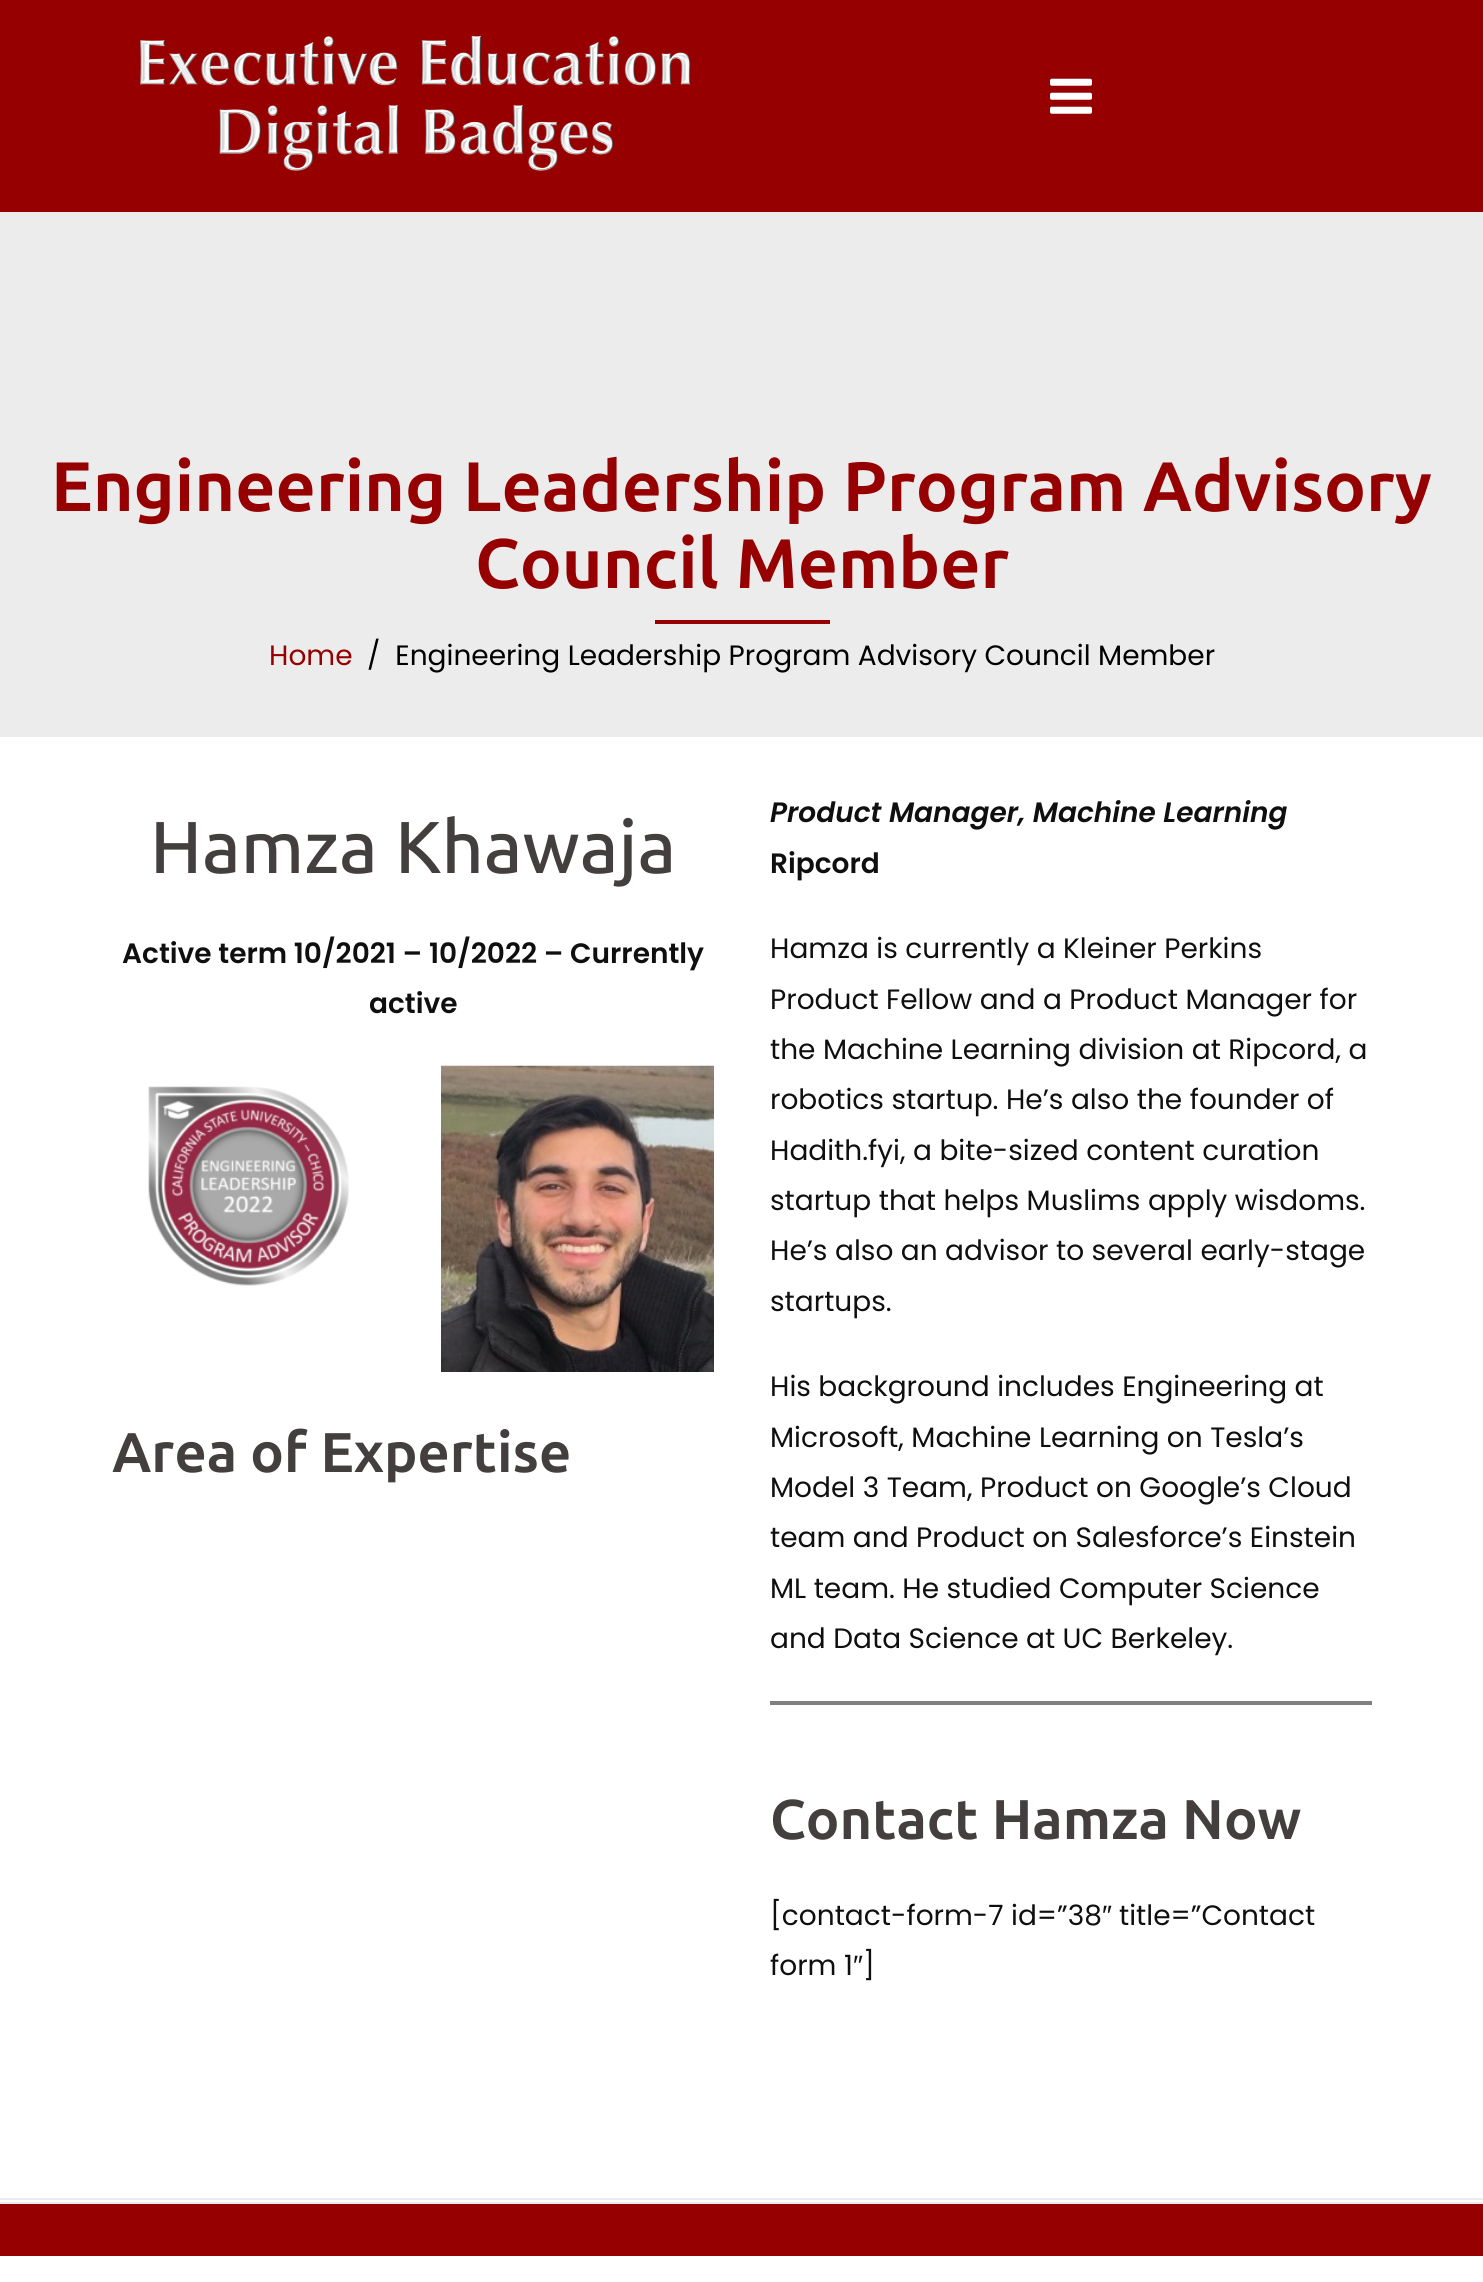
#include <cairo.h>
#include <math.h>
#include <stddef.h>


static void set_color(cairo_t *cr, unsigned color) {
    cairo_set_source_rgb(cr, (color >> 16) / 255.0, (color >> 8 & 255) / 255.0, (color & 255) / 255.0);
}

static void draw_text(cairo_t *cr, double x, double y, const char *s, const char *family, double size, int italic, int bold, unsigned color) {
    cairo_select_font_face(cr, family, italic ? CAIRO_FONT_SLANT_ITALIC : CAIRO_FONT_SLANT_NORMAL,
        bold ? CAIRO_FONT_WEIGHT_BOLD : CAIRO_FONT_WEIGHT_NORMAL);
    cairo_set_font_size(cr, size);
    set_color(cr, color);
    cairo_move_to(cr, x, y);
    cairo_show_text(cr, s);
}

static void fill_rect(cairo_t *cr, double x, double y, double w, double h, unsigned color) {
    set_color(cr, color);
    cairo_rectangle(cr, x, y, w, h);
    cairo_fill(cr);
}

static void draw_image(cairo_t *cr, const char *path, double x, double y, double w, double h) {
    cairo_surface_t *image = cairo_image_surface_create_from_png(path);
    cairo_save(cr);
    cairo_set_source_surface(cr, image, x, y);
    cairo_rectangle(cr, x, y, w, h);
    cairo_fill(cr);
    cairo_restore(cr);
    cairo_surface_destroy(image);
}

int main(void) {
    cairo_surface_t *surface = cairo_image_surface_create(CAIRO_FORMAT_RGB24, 1483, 2282);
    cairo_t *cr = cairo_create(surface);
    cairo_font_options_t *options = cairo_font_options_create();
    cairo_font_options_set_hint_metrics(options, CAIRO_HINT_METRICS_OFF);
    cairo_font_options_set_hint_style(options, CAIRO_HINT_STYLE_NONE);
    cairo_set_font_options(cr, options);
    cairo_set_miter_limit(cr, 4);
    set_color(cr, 0xFFFFFF);
    cairo_paint(cr);
    fill_rect(cr, 0, 0, 1483, 212, 0x960000);
    draw_image(cr, "assets/img1.png", 140, 35, 551, 136);
    draw_image(cr, "assets/img2.png", 1050, 78, 42, 36);
    fill_rect(cr, 0, 212, 1483, 525, 0xECECEC);
    draw_text(cr, 51, 511, "Engineering Leadership Program Advisory", "Ubuntu", 70, 0, 1, 0x960000);
    draw_text(cr, 475, 588, "Council Member", "Ubuntu", 70, 0, 1, 0x960000);
    fill_rect(cr, 655, 620, 175, 4, 0x960000);
    draw_text(cr, 269, 665, "Home", "Poppins", 28, 0, 0, 0x960000);
    draw_text(cr, 367, 665, "/  Engineering Leadership Program Advisory Council Member", "Poppins", 28, 0, 0, 0x000000);
    draw_text(cr, 150, 873, "Hamza Khawaja", "Ubuntu Medium", 73.5, 0, 0, 0x443F3F);
    draw_text(cr, 122, 963, "Active term 10/2021 – 10/2022 – Currently", "Poppins SemiBold", 28, 0, 0, 0x0F0F0F);
    draw_text(cr, 369, 1013, "active", "Poppins SemiBold", 28, 0, 0, 0x0F0F0F);
    draw_image(cr, "assets/img3.png", 148, 1086, 201, 200);
    draw_image(cr, "assets/img4.png", 441, 1065, 273, 307);
    draw_text(cr, 112, 1472, "Area of Expertise", "Ubuntu", 56, 0, 1, 0x443F3F);
    draw_text(cr, 770, 822, "Product Manager, Machine Learning", "Poppins SemiBold", 28, 1, 0, 0x0F0F0F);
    draw_text(cr, 770, 873, "Ripcord", "Poppins SemiBold", 28, 0, 0, 0x0F0F0F);
    draw_text(cr, 770, 958, "Hamza is currently a Kleiner Perkins", "Poppins", 28, 0, 0, 0x0F0F0F);
    draw_text(cr, 770, 1009, "Product Fellow and a Product Manager for", "Poppins", 28, 0, 0, 0x0F0F0F);
    draw_text(cr, 770, 1059, "the Machine Learning division at Ripcord, a", "Poppins", 28, 0, 0, 0x0F0F0F);
    draw_text(cr, 770, 1109, "robotics startup. He’s also the founder of", "Poppins", 28, 0, 0, 0x0F0F0F);
    draw_text(cr, 770, 1160, "Hadith.fyi, a bite-sized content curation", "Poppins", 28, 0, 0, 0x0F0F0F);
    draw_text(cr, 770, 1210, "startup that helps Muslims apply wisdoms.", "Poppins", 28, 0, 0, 0x0F0F0F);
    draw_text(cr, 770, 1260, "He’s also an advisor to several early-stage", "Poppins", 28, 0, 0, 0x0F0F0F);
    draw_text(cr, 770, 1311, "startups.", "Poppins", 28, 0, 0, 0x0F0F0F);
    draw_text(cr, 770, 1396, "His background includes Engineering at", "Poppins", 28, 0, 0, 0x0F0F0F);
    draw_text(cr, 770, 1447, "Microsoft, Machine Learning on Tesla’s", "Poppins", 28, 0, 0, 0x0F0F0F);
    draw_text(cr, 770, 1497, "Model 3 Team, Product on Google’s Cloud", "Poppins", 28, 0, 0, 0x0F0F0F);
    draw_text(cr, 770, 1547, "team and Product on Salesforce’s Einstein", "Poppins", 28, 0, 0, 0x0F0F0F);
    draw_text(cr, 770, 1598, "ML team. He studied Computer Science", "Poppins", 28, 0, 0, 0x0F0F0F);
    draw_text(cr, 770, 1648, "and Data Science at UC Berkeley.", "Poppins", 28, 0, 0, 0x0F0F0F);
    fill_rect(cr, 770, 1701, 602, 4, 0x808080);
    draw_text(cr, 770, 1839, "Contact Hamza Now", "Ubuntu", 56, 0, 1, 0x443F3F);
    draw_text(cr, 770, 1925, "[contact-form-7 id=”38", "Poppins", 28, 0, 0, 0x0F0F0F);
    draw_text(cr, 1102, 1925, "″", "Liberation Sans", 28, 0, 0, 0x0F0F0F);
    draw_text(cr, 1119, 1925, "title=”Contact", "Poppins", 28, 0, 0, 0x0F0F0F);
    draw_text(cr, 770, 1975, "form 1", "Poppins", 28, 0, 0, 0x0F0F0F);
    draw_text(cr, 853, 1975, "″", "Liberation Sans", 28, 0, 0, 0x0F0F0F);
    draw_text(cr, 863, 1975, "]", "Poppins", 28, 0, 0, 0x0F0F0F);
    fill_rect(cr, 0, 2198, 1483, 2, 0xEBEBEB);
    fill_rect(cr, 0, 2204, 1483, 52, 0x960000);
    fill_rect(cr, 0, 2202, 1483, 2, 0xEBEBEB);
    cairo_surface_write_to_png(surface, "output.png");
    cairo_font_options_destroy(options);
    cairo_destroy(cr);
    cairo_surface_destroy(surface);
    return 0;
}
